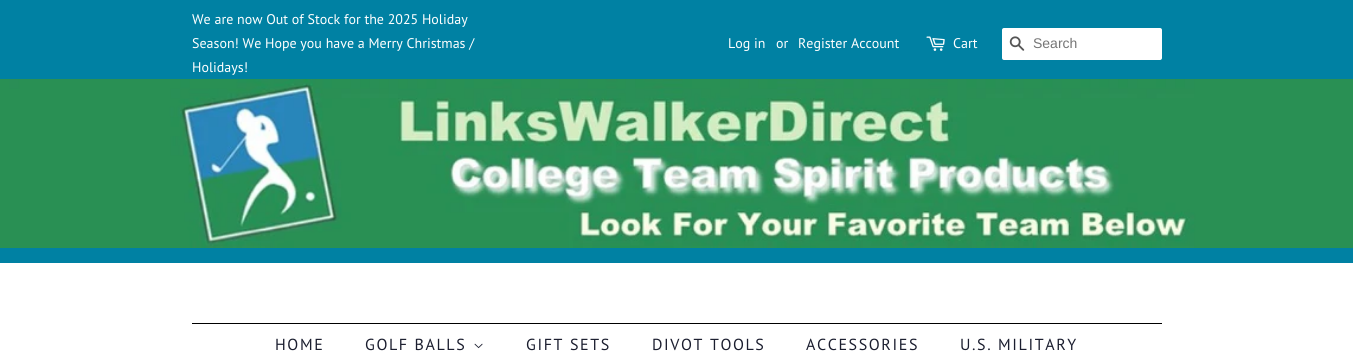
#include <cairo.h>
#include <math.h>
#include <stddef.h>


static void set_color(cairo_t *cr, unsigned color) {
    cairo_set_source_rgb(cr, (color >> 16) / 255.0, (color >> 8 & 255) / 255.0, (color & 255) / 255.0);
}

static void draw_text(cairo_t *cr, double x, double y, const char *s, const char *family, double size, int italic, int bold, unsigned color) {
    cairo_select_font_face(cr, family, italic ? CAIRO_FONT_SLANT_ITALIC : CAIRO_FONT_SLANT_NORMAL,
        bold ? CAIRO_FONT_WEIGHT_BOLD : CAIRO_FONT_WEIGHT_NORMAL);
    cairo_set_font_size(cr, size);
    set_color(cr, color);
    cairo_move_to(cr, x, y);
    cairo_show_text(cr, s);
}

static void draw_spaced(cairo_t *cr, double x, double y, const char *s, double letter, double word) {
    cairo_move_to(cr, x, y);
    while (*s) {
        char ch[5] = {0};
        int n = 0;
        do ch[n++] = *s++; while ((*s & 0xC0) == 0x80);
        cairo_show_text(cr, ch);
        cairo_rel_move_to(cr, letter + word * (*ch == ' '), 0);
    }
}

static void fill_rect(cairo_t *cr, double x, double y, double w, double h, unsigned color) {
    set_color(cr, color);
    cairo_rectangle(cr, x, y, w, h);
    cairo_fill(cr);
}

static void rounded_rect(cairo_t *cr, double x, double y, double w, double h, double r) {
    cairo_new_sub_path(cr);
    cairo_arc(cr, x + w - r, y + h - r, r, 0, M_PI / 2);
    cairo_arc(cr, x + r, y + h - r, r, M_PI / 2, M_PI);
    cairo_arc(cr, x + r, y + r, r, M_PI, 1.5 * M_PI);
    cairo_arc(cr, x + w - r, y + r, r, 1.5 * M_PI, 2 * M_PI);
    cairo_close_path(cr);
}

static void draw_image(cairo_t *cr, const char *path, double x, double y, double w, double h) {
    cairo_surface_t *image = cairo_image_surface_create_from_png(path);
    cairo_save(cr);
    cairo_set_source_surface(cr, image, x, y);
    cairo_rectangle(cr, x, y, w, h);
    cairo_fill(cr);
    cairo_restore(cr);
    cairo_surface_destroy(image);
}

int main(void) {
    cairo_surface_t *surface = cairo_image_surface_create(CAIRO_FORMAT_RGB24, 1353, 361);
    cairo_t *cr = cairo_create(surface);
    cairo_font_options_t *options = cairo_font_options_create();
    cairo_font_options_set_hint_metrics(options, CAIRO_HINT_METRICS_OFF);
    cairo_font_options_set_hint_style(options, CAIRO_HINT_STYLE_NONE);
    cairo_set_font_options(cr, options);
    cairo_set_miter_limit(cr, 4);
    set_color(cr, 0xFFFFFF);
    cairo_paint(cr);
    fill_rect(cr, 0, 0, 1353, 263, 0x0081A3);
    draw_text(cr, 192, 24, "We are now Out of Stock for the 2025 Holiday", "PT Sans", 14, 0, 0, 0xFFFFFF);
    draw_text(cr, 192, 48, "Season! We Hope you have a Merry Christmas /", "PT Sans", 14, 0, 0, 0xFFFFFF);
    draw_text(cr, 192, 72, "Holidays!", "PT Sans", 14, 0, 0, 0xFFFFFF);
    draw_text(cr, 728, 48, "Log in", "PT Sans", 14, 0, 0, 0xFFFFFF);
    draw_text(cr, 776, 48, "or", "PT Sans", 14, 0, 0, 0xFFFFFF);
    draw_text(cr, 798, 48, "Register Account", "PT Sans", 14, 0, 0, 0xFFFFFF);
    draw_image(cr, "assets/img1.png", 926, 36, 19, 15);
    draw_text(cr, 953, 48, "Cart", "PT Sans", 14, 0, 0, 0xFFFFFF);
    rounded_rect(cr, 1002, 28, 160, 32, 2);
    cairo_fill(cr);
    draw_image(cr, "assets/img2.png", 1009, 36, 16, 15);
    draw_text(cr, 1033, 48, "Search", "Liberation Sans", 14, 0, 0, 0x757575);
    draw_image(cr, "assets/img3.png", 0, 79, 1353, 169);
    fill_rect(cr, 192, 323, 970, 1, 0x000000);
    cairo_select_font_face(cr, "PT Sans", CAIRO_FONT_SLANT_NORMAL, CAIRO_FONT_WEIGHT_NORMAL);
    cairo_set_font_size(cr, 16);
    set_color(cr, 0x1B1E2F);
    draw_spaced(cr, 275, 350, "HOME", 1.6, 0);
    draw_spaced(cr, 365, 350, "GOLF BALLS", 1.6, 0);
    draw_image(cr, "assets/img4.png", 474, 343, 9, 6);
    draw_spaced(cr, 526, 350, "GIFT SETS", 1.6, 0);
    draw_spaced(cr, 652, 350, "DIVOT TOOLS", 1.6, 0);
    draw_spaced(cr, 806, 350, "ACCESSORIES", 1.6, 0);
    draw_spaced(cr, 960, 350, "U.S. MILITARY", 1.6, 0);
    cairo_surface_write_to_png(surface, "output.png");
    cairo_font_options_destroy(options);
    cairo_destroy(cr);
    cairo_surface_destroy(surface);
    return 0;
}
